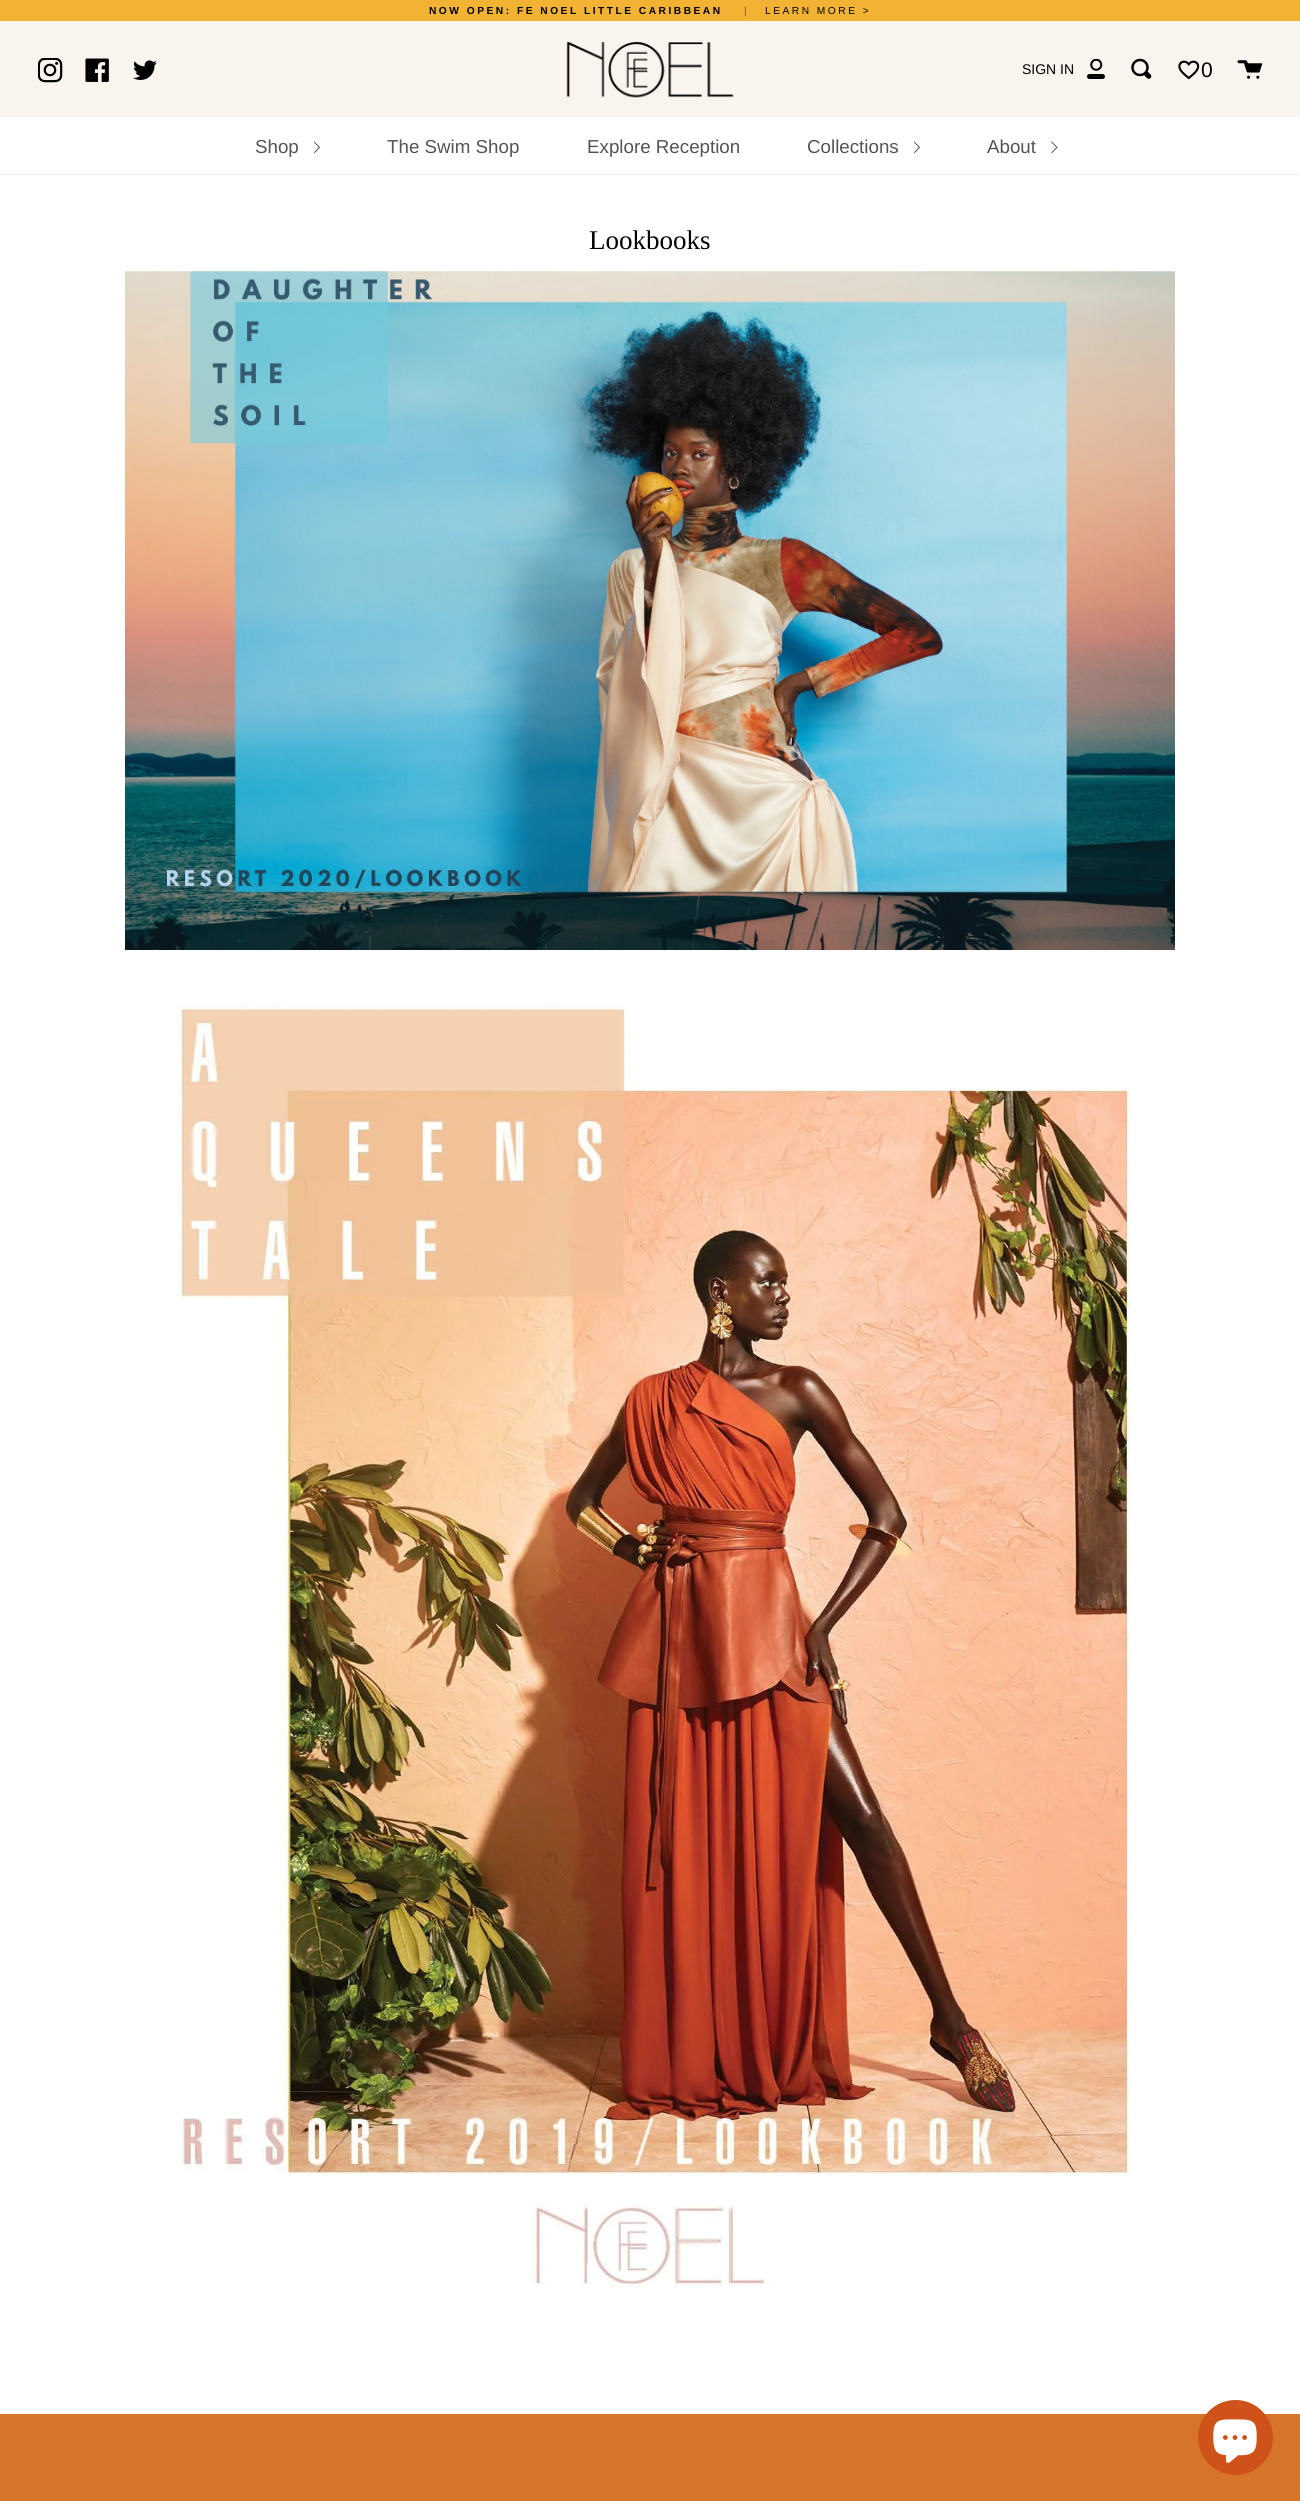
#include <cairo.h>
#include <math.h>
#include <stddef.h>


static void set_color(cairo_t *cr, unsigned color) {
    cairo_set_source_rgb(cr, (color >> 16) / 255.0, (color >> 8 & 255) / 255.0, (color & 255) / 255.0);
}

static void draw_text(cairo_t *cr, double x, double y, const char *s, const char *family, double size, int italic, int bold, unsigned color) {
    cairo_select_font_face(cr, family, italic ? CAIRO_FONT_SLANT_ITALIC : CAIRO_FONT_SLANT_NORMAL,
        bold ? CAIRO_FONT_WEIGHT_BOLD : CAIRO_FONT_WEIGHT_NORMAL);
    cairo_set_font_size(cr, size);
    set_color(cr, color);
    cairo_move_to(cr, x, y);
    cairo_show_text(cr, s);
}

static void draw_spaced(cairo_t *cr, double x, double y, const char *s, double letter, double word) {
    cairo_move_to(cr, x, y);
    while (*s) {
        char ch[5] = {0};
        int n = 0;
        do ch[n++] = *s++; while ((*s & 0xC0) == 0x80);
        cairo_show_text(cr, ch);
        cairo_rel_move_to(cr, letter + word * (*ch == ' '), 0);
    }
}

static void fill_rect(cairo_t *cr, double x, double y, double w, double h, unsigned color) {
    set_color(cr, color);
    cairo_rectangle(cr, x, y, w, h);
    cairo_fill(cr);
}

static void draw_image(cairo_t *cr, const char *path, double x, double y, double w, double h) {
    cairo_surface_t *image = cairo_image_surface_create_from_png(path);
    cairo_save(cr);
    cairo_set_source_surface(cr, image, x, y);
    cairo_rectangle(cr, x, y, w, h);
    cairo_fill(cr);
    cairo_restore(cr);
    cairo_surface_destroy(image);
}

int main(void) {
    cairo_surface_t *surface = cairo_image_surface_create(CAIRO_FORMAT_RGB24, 1300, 2501);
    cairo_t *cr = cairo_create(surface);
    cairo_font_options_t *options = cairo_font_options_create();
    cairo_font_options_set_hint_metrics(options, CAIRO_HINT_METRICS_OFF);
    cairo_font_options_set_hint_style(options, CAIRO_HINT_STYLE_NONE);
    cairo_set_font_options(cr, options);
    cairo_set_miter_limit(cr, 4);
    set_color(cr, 0xFFFFFF);
    cairo_paint(cr);
    fill_rect(cr, 0, 0, 1300, 21, 0xF2B234);
    cairo_select_font_face(cr, "Liberation Sans", CAIRO_FONT_SLANT_NORMAL, CAIRO_FONT_WEIGHT_BOLD);
    cairo_set_font_size(cr, 10.2);
    set_color(cr, 0x000000);
    draw_spaced(cr, 429, 14, "NOW OPEN: FE NOEL LITTLE CARIBBEAN", 2.5, 0);
    cairo_select_font_face(cr, "Liberation Sans", CAIRO_FONT_SLANT_NORMAL, CAIRO_FONT_WEIGHT_NORMAL);
    set_color(cr, 0x79591A);
    draw_spaced(cr, 744, 14, "|", 2.5, 0);
    set_color(cr, 0x000000);
    draw_spaced(cr, 765, 14, "LEARN MORE >", 2.5, 0);
    fill_rect(cr, 0, 21, 1300, 95, 0xF9F4EE);
    draw_image(cr, "assets/img1.png", 38, 58, 25, 25);
    draw_image(cr, "assets/img2.png", 85, 58, 24, 24);
    draw_image(cr, "assets/img3.png", 133, 60, 24, 20);
    draw_image(cr, "assets/img4.png", 566, 41, 168, 57);
    draw_text(cr, 1022, 74, "SIGN IN", "Liberation Sans", 14, 0, 0, 0x000000);
    draw_image(cr, "assets/img5.png", 1087, 59, 18, 20);
    draw_image(cr, "assets/img6.png", 1131, 58, 21, 21);
    draw_image(cr, "assets/img7.png", 1178, 60, 22, 20);
    draw_text(cr, 1201, 77, "0", "Liberation Sans", 21, 0, 0, 0x000000);
    draw_image(cr, "assets/img8.png", 1237, 60, 26, 19);
    fill_rect(cr, 0, 116, 1300, 1, 0xF0F0F0);
    fill_rect(cr, 0, 174, 1300, 1, 0xF0F0F0);
    draw_text(cr, 255, 153, "Shop", "Liberation Sans", 18.75, 0, 0, 0x545454);
    draw_image(cr, "assets/img9.png", 314, 141, 6, 13);
    draw_text(cr, 387, 153, "The Swim Shop", "Liberation Sans", 18.75, 0, 0, 0x545454);
    draw_text(cr, 587, 153, "Explore Reception", "Liberation Sans", 18.75, 0, 0, 0x545454);
    draw_text(cr, 807, 153, "Collections", "Liberation Sans", 18.75, 0, 0, 0x545454);
    draw_image(cr, "assets/img9.png", 914, 141, 6, 13);
    draw_text(cr, 987, 153, "About", "Liberation Sans", 18.75, 0, 0, 0x545454);
    draw_image(cr, "assets/img10.png", 1051, 141, 7, 13);
    draw_text(cr, 589, 249, "Lookbooks", "Liberation Serif", 27, 0, 0, 0x000000);
    draw_image(cr, "assets/img11.png", 125, 271, 1050, 679);
    draw_image(cr, "assets/img12.png", 178, 1004, 953, 1284);
    fill_rect(cr, 0, 2414, 1300, 87, 0xD67529);
    set_color(cr, 0xCE5219);
    cairo_arc(cr, 1235.5, 2437.5, 37.5, 0, 2 * M_PI);
    cairo_fill(cr);
    draw_image(cr, "assets/img13.png", 1213, 2419, 44, 44);
    cairo_surface_write_to_png(surface, "output.png");
    cairo_font_options_destroy(options);
    cairo_destroy(cr);
    cairo_surface_destroy(surface);
    return 0;
}
